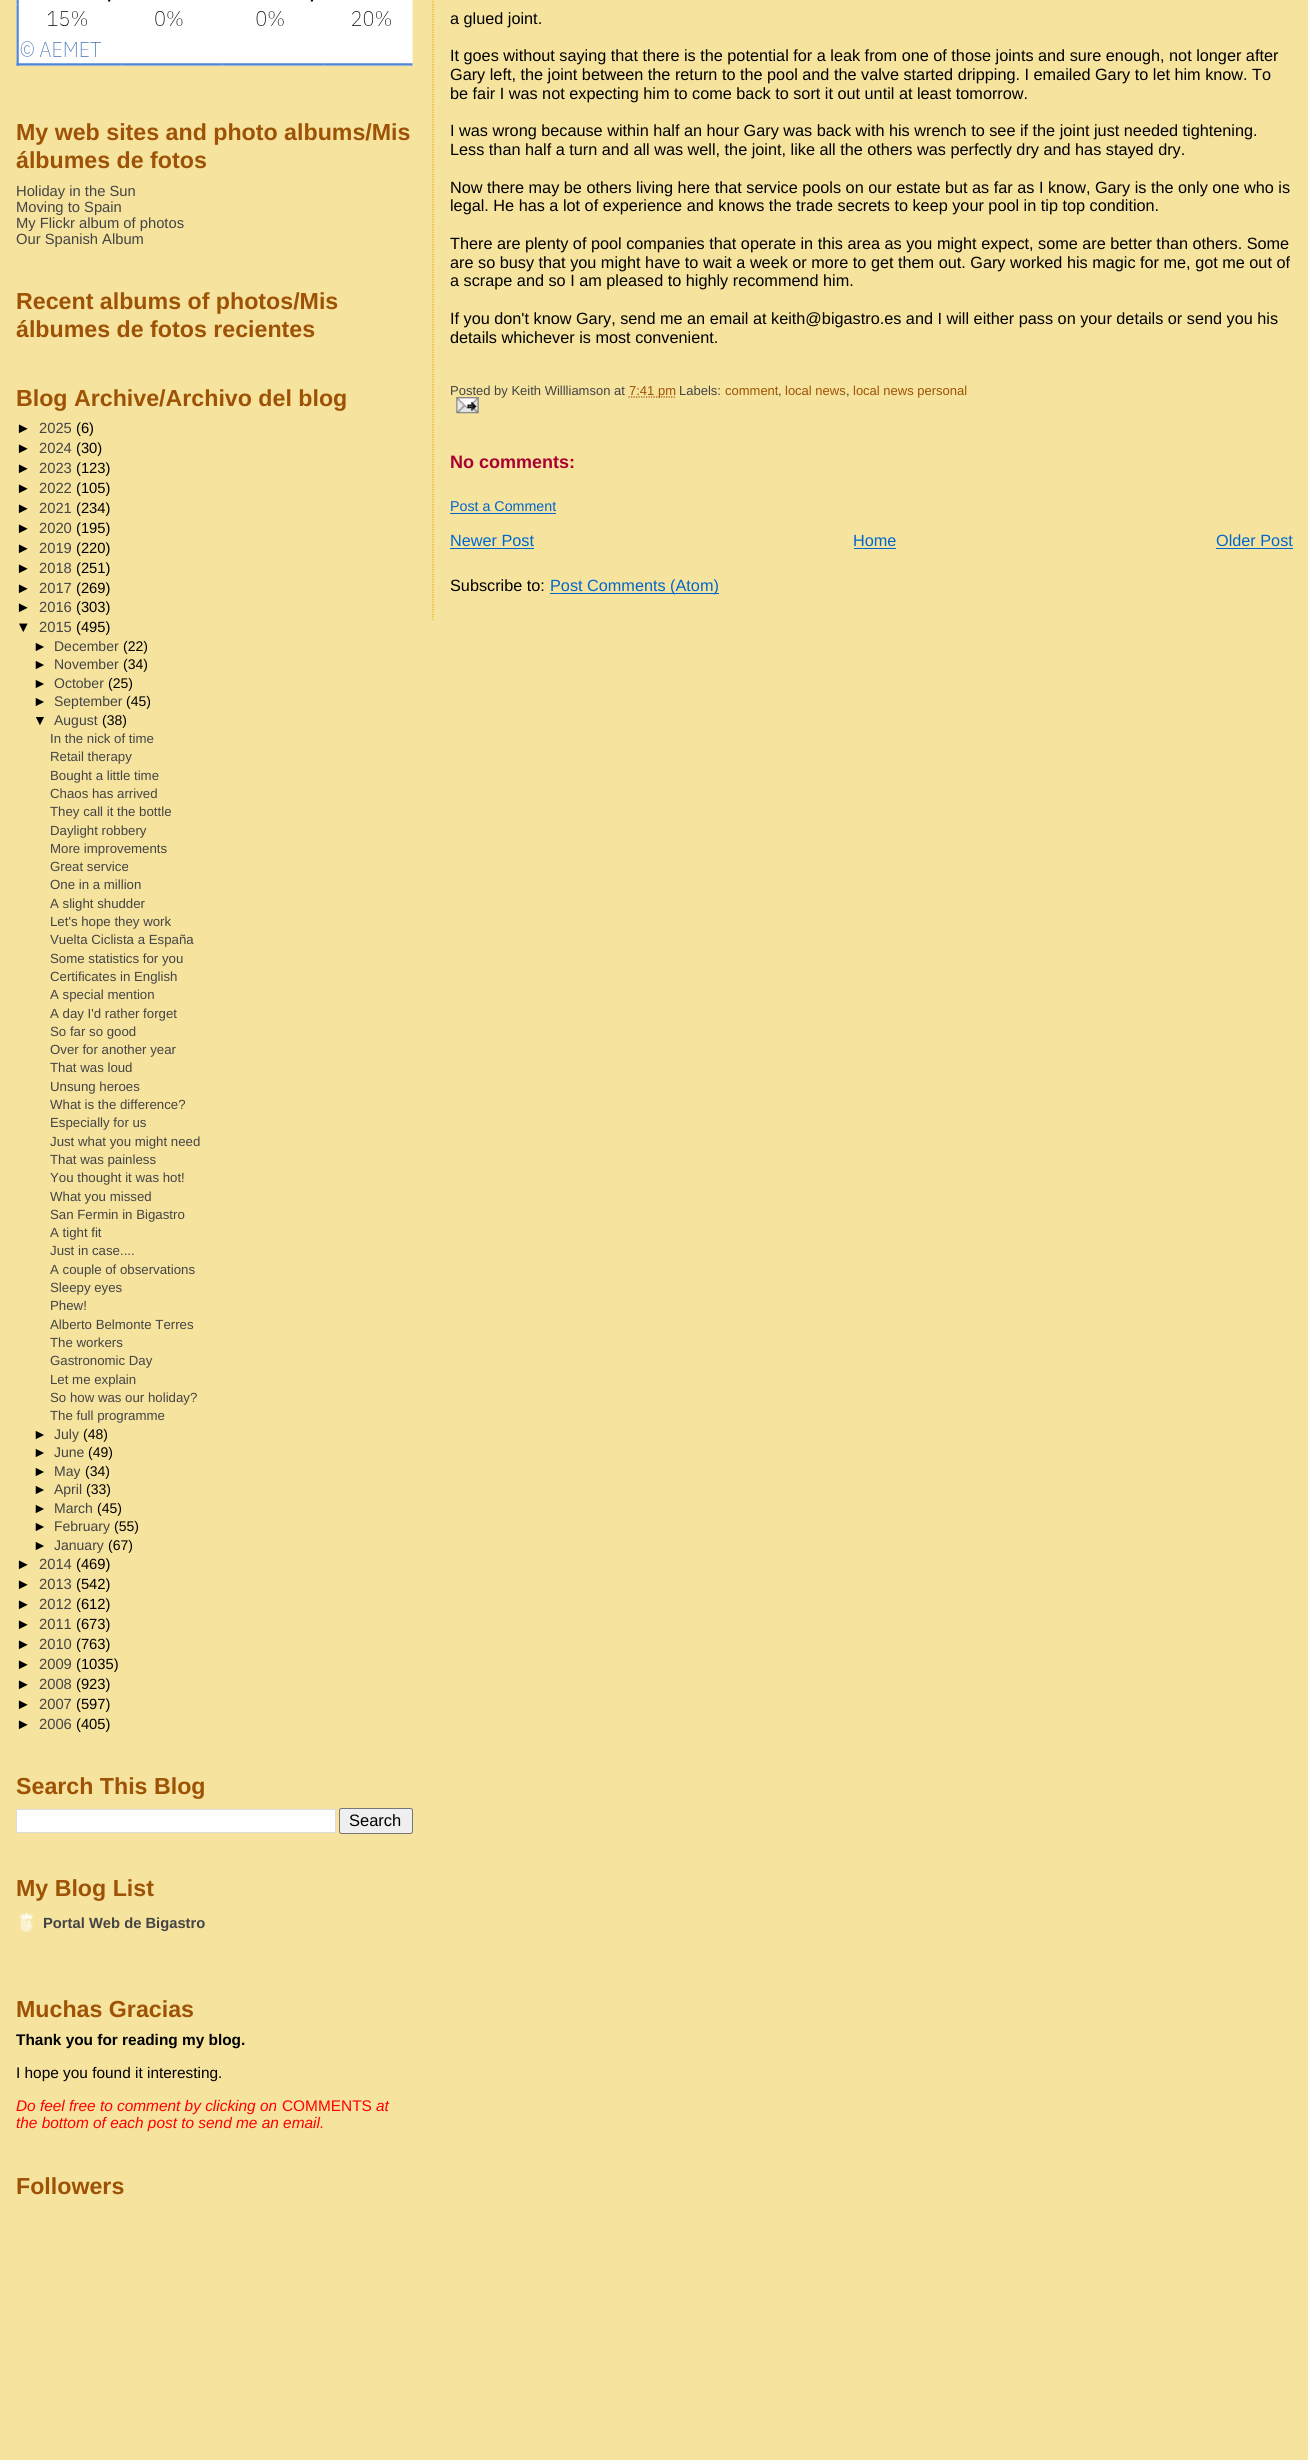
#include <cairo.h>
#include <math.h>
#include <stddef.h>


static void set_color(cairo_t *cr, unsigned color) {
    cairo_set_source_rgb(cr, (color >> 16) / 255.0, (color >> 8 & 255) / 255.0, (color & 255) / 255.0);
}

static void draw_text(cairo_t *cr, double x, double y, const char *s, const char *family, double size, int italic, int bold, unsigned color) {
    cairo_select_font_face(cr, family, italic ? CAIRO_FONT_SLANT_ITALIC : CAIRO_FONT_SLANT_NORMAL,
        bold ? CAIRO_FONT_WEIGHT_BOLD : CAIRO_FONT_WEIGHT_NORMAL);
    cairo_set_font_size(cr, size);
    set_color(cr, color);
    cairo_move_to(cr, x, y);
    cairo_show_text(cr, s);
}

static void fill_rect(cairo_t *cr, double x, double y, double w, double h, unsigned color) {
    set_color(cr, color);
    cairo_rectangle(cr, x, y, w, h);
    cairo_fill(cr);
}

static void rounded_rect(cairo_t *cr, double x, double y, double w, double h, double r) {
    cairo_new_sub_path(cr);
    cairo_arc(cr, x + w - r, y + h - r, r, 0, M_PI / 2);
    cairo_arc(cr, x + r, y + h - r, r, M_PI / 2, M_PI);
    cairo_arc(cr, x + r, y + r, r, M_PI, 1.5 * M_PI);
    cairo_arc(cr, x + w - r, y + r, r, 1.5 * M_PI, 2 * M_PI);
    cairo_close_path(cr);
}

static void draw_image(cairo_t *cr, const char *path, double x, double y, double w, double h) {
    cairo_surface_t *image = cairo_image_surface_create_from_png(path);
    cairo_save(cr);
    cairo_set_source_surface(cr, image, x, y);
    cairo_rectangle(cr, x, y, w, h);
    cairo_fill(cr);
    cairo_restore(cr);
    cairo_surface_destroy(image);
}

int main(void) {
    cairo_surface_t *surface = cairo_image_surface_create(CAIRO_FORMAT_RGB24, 1308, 2460);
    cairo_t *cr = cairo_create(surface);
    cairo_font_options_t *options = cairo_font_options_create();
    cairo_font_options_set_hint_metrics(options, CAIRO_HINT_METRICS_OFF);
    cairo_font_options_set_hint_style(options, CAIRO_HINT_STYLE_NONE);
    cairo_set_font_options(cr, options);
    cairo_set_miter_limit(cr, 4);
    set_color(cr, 0xF5E39E);
    cairo_paint(cr);
    draw_image(cr, "assets/img1.png", 16, 0, 397, 66);
    draw_text(cr, 16, 140, "My web sites and photo albums/Mis", "Liberation Sans", 23.2, 0, 1, 0x9E5205);
    draw_text(cr, 16, 168, "álbumes de fotos", "Liberation Sans", 23.2, 0, 1, 0x9E5205);
    draw_text(cr, 16, 196, "Holiday in the Sun", "Liberation Sans", 14.75, 0, 0, 0x444444);
    draw_text(cr, 16, 212, "Moving to Spain", "Liberation Sans", 14.75, 0, 0, 0x444444);
    draw_text(cr, 16, 228, "My Flickr album of photos", "Liberation Sans", 14.75, 0, 0, 0x444444);
    draw_text(cr, 16, 244, "Our Spanish Album", "Liberation Sans", 14.75, 0, 0, 0x444444);
    draw_text(cr, 16, 309, "Recent albums of photos/Mis", "Liberation Sans", 23.2, 0, 1, 0x9E5205);
    draw_text(cr, 16, 337, "álbumes de fotos recientes", "Liberation Sans", 23.2, 0, 1, 0x9E5205);
    draw_text(cr, 16, 406, "Blog Archive/Archivo del blog", "Liberation Sans", 23.2, 0, 1, 0x9E5205);
    draw_text(cr, 16, 433, "►", "Liberation Sans", 14.75, 0, 0, 0x000000);
    draw_text(cr, 39, 433, "2025", "Liberation Sans", 14.75, 0, 0, 0x444444);
    draw_text(cr, 76, 433, "(6)", "Liberation Sans", 14.75, 0, 0, 0x000000);
    draw_text(cr, 16, 453, "►", "Liberation Sans", 14.75, 0, 0, 0x000000);
    draw_text(cr, 39, 453, "2024", "Liberation Sans", 14.75, 0, 0, 0x444444);
    draw_text(cr, 76, 453, "(30)", "Liberation Sans", 14.75, 0, 0, 0x000000);
    draw_text(cr, 16, 473, "►", "Liberation Sans", 14.75, 0, 0, 0x000000);
    draw_text(cr, 39, 473, "2023", "Liberation Sans", 14.75, 0, 0, 0x444444);
    draw_text(cr, 76, 473, "(123)", "Liberation Sans", 14.75, 0, 0, 0x000000);
    draw_text(cr, 16, 493, "►", "Liberation Sans", 14.75, 0, 0, 0x000000);
    draw_text(cr, 39, 493, "2022", "Liberation Sans", 14.75, 0, 0, 0x444444);
    draw_text(cr, 76, 493, "(105)", "Liberation Sans", 14.75, 0, 0, 0x000000);
    draw_text(cr, 16, 513, "►", "Liberation Sans", 14.75, 0, 0, 0x000000);
    draw_text(cr, 39, 513, "2021", "Liberation Sans", 14.75, 0, 0, 0x444444);
    draw_text(cr, 76, 513, "(234)", "Liberation Sans", 14.75, 0, 0, 0x000000);
    draw_text(cr, 16, 533, "►", "Liberation Sans", 14.75, 0, 0, 0x000000);
    draw_text(cr, 39, 533, "2020", "Liberation Sans", 14.75, 0, 0, 0x444444);
    draw_text(cr, 76, 533, "(195)", "Liberation Sans", 14.75, 0, 0, 0x000000);
    draw_text(cr, 16, 553, "►", "Liberation Sans", 14.75, 0, 0, 0x000000);
    draw_text(cr, 39, 553, "2019", "Liberation Sans", 14.75, 0, 0, 0x444444);
    draw_text(cr, 76, 553, "(220)", "Liberation Sans", 14.75, 0, 0, 0x000000);
    draw_text(cr, 16, 573, "►", "Liberation Sans", 14.75, 0, 0, 0x000000);
    draw_text(cr, 39, 573, "2018", "Liberation Sans", 14.75, 0, 0, 0x444444);
    draw_text(cr, 76, 573, "(251)", "Liberation Sans", 14.75, 0, 0, 0x000000);
    draw_text(cr, 16, 593, "►", "Liberation Sans", 14.75, 0, 0, 0x000000);
    draw_text(cr, 39, 593, "2017", "Liberation Sans", 14.75, 0, 0, 0x444444);
    draw_text(cr, 76, 593, "(269)", "Liberation Sans", 14.75, 0, 0, 0x000000);
    draw_text(cr, 16, 612, "►", "Liberation Sans", 14.75, 0, 0, 0x000000);
    draw_text(cr, 39, 612, "2016", "Liberation Sans", 14.75, 0, 0, 0x444444);
    draw_text(cr, 76, 612, "(303)", "Liberation Sans", 14.75, 0, 0, 0x000000);
    draw_text(cr, 16, 632, "▼", "Liberation Sans", 14.75, 0, 0, 0x000000);
    draw_text(cr, 39, 632, "2015", "Liberation Sans", 14.75, 0, 0, 0x444444);
    draw_text(cr, 76, 632, "(495)", "Liberation Sans", 14.75, 0, 0, 0x000000);
    draw_text(cr, 33, 651, "►", "Liberation Sans", 14, 0, 0, 0x000000);
    draw_text(cr, 54, 651, "December", "Liberation Sans", 14, 0, 0, 0x444444);
    draw_text(cr, 123, 651, "(22)", "Liberation Sans", 14, 0, 0, 0x000000);
    draw_text(cr, 33, 669, "►", "Liberation Sans", 14, 0, 0, 0x000000);
    draw_text(cr, 54, 669, "November", "Liberation Sans", 14, 0, 0, 0x444444);
    draw_text(cr, 123, 669, "(34)", "Liberation Sans", 14, 0, 0, 0x000000);
    draw_text(cr, 33, 688, "►", "Liberation Sans", 14, 0, 0, 0x000000);
    draw_text(cr, 54, 688, "October", "Liberation Sans", 14, 0, 0, 0x444444);
    draw_text(cr, 108, 688, "(25)", "Liberation Sans", 14, 0, 0, 0x000000);
    draw_text(cr, 33, 706, "►", "Liberation Sans", 14, 0, 0, 0x000000);
    draw_text(cr, 54, 706, "September", "Liberation Sans", 14, 0, 0, 0x444444);
    draw_text(cr, 126, 706, "(45)", "Liberation Sans", 14, 0, 0, 0x000000);
    draw_text(cr, 33, 725, "▼", "Liberation Sans", 14, 0, 0, 0x000000);
    draw_text(cr, 54, 725, "August", "Liberation Sans", 14, 0, 0, 0x444444);
    draw_text(cr, 102, 725, "(38)", "Liberation Sans", 14, 0, 0, 0x000000);
    draw_text(cr, 50, 743, "In the nick of time", "Liberation Sans", 13.25, 0, 0, 0x444444);
    draw_text(cr, 50, 761, "Retail therapy", "Liberation Sans", 13.25, 0, 0, 0x444444);
    draw_text(cr, 50, 780, "Bought a little time", "Liberation Sans", 13.25, 0, 0, 0x444444);
    draw_text(cr, 50, 798, "Chaos has arrived", "Liberation Sans", 13.25, 0, 0, 0x444444);
    draw_text(cr, 50, 816, "They call it the bottle", "Liberation Sans", 13.25, 0, 0, 0x444444);
    draw_text(cr, 50, 835, "Daylight robbery", "Liberation Sans", 13.25, 0, 0, 0x444444);
    draw_text(cr, 50, 853, "More improvements", "Liberation Sans", 13.25, 0, 0, 0x444444);
    draw_text(cr, 50, 871, "Great service", "Liberation Sans", 13.25, 0, 0, 0x444444);
    draw_text(cr, 50, 889, "One in a million", "Liberation Sans", 13.25, 0, 0, 0x444444);
    draw_text(cr, 50, 908, "A slight shudder", "Liberation Sans", 13.25, 0, 0, 0x444444);
    draw_text(cr, 50, 926, "Let's hope they work", "Liberation Sans", 13.25, 0, 0, 0x444444);
    draw_text(cr, 50, 944, "Vuelta Ciclista a España", "Liberation Sans", 13.25, 0, 0, 0x444444);
    draw_text(cr, 50, 963, "Some statistics for you", "Liberation Sans", 13.25, 0, 0, 0x444444);
    draw_text(cr, 50, 981, "Certificates in English", "Liberation Sans", 13.25, 0, 0, 0x444444);
    draw_text(cr, 50, 999, "A special mention", "Liberation Sans", 13.25, 0, 0, 0x444444);
    draw_text(cr, 50, 1018, "A day I'd rather forget", "Liberation Sans", 13.25, 0, 0, 0x444444);
    draw_text(cr, 50, 1036, "So far so good", "Liberation Sans", 13.25, 0, 0, 0x444444);
    draw_text(cr, 50, 1054, "Over for another year", "Liberation Sans", 13.25, 0, 0, 0x444444);
    draw_text(cr, 50, 1072, "That was loud", "Liberation Sans", 13.25, 0, 0, 0x444444);
    draw_text(cr, 50, 1091, "Unsung heroes", "Liberation Sans", 13.25, 0, 0, 0x444444);
    draw_text(cr, 50, 1109, "What is the difference?", "Liberation Sans", 13.25, 0, 0, 0x444444);
    draw_text(cr, 50, 1127, "Especially for us", "Liberation Sans", 13.25, 0, 0, 0x444444);
    draw_text(cr, 50, 1146, "Just what you might need", "Liberation Sans", 13.25, 0, 0, 0x444444);
    draw_text(cr, 50, 1164, "That was painless", "Liberation Sans", 13.25, 0, 0, 0x444444);
    draw_text(cr, 50, 1182, "You thought it was hot!", "Liberation Sans", 13.25, 0, 0, 0x444444);
    draw_text(cr, 50, 1201, "What you missed", "Liberation Sans", 13.25, 0, 0, 0x444444);
    draw_text(cr, 50, 1219, "San Fermin in Bigastro", "Liberation Sans", 13.25, 0, 0, 0x444444);
    draw_text(cr, 50, 1237, "A tight fit", "Liberation Sans", 13.25, 0, 0, 0x444444);
    draw_text(cr, 50, 1255, "Just in case....", "Liberation Sans", 13.25, 0, 0, 0x444444);
    draw_text(cr, 50, 1274, "A couple of observations", "Liberation Sans", 13.25, 0, 0, 0x444444);
    draw_text(cr, 50, 1292, "Sleepy eyes", "Liberation Sans", 13.25, 0, 0, 0x444444);
    draw_text(cr, 50, 1310, "Phew!", "Liberation Sans", 13.25, 0, 0, 0x444444);
    draw_text(cr, 50, 1329, "Alberto Belmonte Terres", "Liberation Sans", 13.25, 0, 0, 0x444444);
    draw_text(cr, 50, 1347, "The workers", "Liberation Sans", 13.25, 0, 0, 0x444444);
    draw_text(cr, 50, 1365, "Gastronomic Day", "Liberation Sans", 13.25, 0, 0, 0x444444);
    draw_text(cr, 50, 1384, "Let me explain", "Liberation Sans", 13.25, 0, 0, 0x444444);
    draw_text(cr, 50, 1402, "So how was our holiday?", "Liberation Sans", 13.25, 0, 0, 0x444444);
    draw_text(cr, 50, 1420, "The full programme", "Liberation Sans", 13.25, 0, 0, 0x444444);
    draw_text(cr, 33, 1439, "►", "Liberation Sans", 14, 0, 0, 0x000000);
    draw_text(cr, 54, 1439, "July", "Liberation Sans", 14, 0, 0, 0x444444);
    draw_text(cr, 83, 1439, "(48)", "Liberation Sans", 14, 0, 0, 0x000000);
    draw_text(cr, 33, 1457, "►", "Liberation Sans", 14, 0, 0, 0x000000);
    draw_text(cr, 54, 1457, "June", "Liberation Sans", 14, 0, 0, 0x444444);
    draw_text(cr, 88, 1457, "(49)", "Liberation Sans", 14, 0, 0, 0x000000);
    draw_text(cr, 33, 1476, "►", "Liberation Sans", 14, 0, 0, 0x000000);
    draw_text(cr, 54, 1476, "May", "Liberation Sans", 14, 0, 0, 0x444444);
    draw_text(cr, 85, 1476, "(34)", "Liberation Sans", 14, 0, 0, 0x000000);
    draw_text(cr, 33, 1494, "►", "Liberation Sans", 14, 0, 0, 0x000000);
    draw_text(cr, 54, 1494, "April", "Liberation Sans", 14, 0, 0, 0x444444);
    draw_text(cr, 86, 1494, "(33)", "Liberation Sans", 14, 0, 0, 0x000000);
    draw_text(cr, 33, 1513, "►", "Liberation Sans", 14, 0, 0, 0x000000);
    draw_text(cr, 54, 1513, "March", "Liberation Sans", 14, 0, 0, 0x444444);
    draw_text(cr, 97, 1513, "(45)", "Liberation Sans", 14, 0, 0, 0x000000);
    draw_text(cr, 33, 1531, "►", "Liberation Sans", 14, 0, 0, 0x000000);
    draw_text(cr, 54, 1531, "February", "Liberation Sans", 14, 0, 0, 0x444444);
    draw_text(cr, 114, 1531, "(55)", "Liberation Sans", 14, 0, 0, 0x000000);
    draw_text(cr, 33, 1550, "►", "Liberation Sans", 14, 0, 0, 0x000000);
    draw_text(cr, 54, 1550, "January", "Liberation Sans", 14, 0, 0, 0x444444);
    draw_text(cr, 108, 1550, "(67)", "Liberation Sans", 14, 0, 0, 0x000000);
    draw_text(cr, 16, 1569, "►", "Liberation Sans", 14.75, 0, 0, 0x000000);
    draw_text(cr, 39, 1569, "2014", "Liberation Sans", 14.75, 0, 0, 0x444444);
    draw_text(cr, 76, 1569, "(469)", "Liberation Sans", 14.75, 0, 0, 0x000000);
    draw_text(cr, 16, 1589, "►", "Liberation Sans", 14.75, 0, 0, 0x000000);
    draw_text(cr, 39, 1589, "2013", "Liberation Sans", 14.75, 0, 0, 0x444444);
    draw_text(cr, 76, 1589, "(542)", "Liberation Sans", 14.75, 0, 0, 0x000000);
    draw_text(cr, 16, 1609, "►", "Liberation Sans", 14.75, 0, 0, 0x000000);
    draw_text(cr, 39, 1609, "2012", "Liberation Sans", 14.75, 0, 0, 0x444444);
    draw_text(cr, 76, 1609, "(612)", "Liberation Sans", 14.75, 0, 0, 0x000000);
    draw_text(cr, 16, 1629, "►", "Liberation Sans", 14.75, 0, 0, 0x000000);
    draw_text(cr, 39, 1629, "2011", "Liberation Sans", 14.75, 0, 0, 0x444444);
    draw_text(cr, 76, 1629, "(673)", "Liberation Sans", 14.75, 0, 0, 0x000000);
    draw_text(cr, 16, 1649, "►", "Liberation Sans", 14.75, 0, 0, 0x000000);
    draw_text(cr, 39, 1649, "2010", "Liberation Sans", 14.75, 0, 0, 0x444444);
    draw_text(cr, 76, 1649, "(763)", "Liberation Sans", 14.75, 0, 0, 0x000000);
    draw_text(cr, 16, 1669, "►", "Liberation Sans", 14.75, 0, 0, 0x000000);
    draw_text(cr, 39, 1669, "2009", "Liberation Sans", 14.75, 0, 0, 0x444444);
    draw_text(cr, 76, 1669, "(1035)", "Liberation Sans", 14.75, 0, 0, 0x000000);
    draw_text(cr, 16, 1689, "►", "Liberation Sans", 14.75, 0, 0, 0x000000);
    draw_text(cr, 39, 1689, "2008", "Liberation Sans", 14.75, 0, 0, 0x444444);
    draw_text(cr, 76, 1689, "(923)", "Liberation Sans", 14.75, 0, 0, 0x000000);
    draw_text(cr, 16, 1709, "►", "Liberation Sans", 14.75, 0, 0, 0x000000);
    draw_text(cr, 39, 1709, "2007", "Liberation Sans", 14.75, 0, 0, 0x444444);
    draw_text(cr, 76, 1709, "(597)", "Liberation Sans", 14.75, 0, 0, 0x000000);
    draw_text(cr, 16, 1729, "►", "Liberation Sans", 14.75, 0, 0, 0x000000);
    draw_text(cr, 39, 1729, "2006", "Liberation Sans", 14.75, 0, 0, 0x444444);
    draw_text(cr, 76, 1729, "(405)", "Liberation Sans", 14.75, 0, 0, 0x000000);
    draw_text(cr, 16, 1794, "Search This Blog", "Liberation Sans", 23.2, 0, 1, 0x9E5205);
    set_color(cr, 0xFFFFFF);
    cairo_rectangle(cr, 16.5, 1809.5, 319, 23);
    cairo_fill_preserve(cr);
    set_color(cr, 0xDDDDDD);
    cairo_set_line_width(cr, 1);
    cairo_stroke(cr);
    set_color(cr, 0xEFEFEF);
    rounded_rect(cr, 339.5, 1808.5, 73, 25, 2);
    cairo_fill_preserve(cr);
    set_color(cr, 0x767676);
    cairo_stroke(cr);
    draw_text(cr, 349, 1826, "Search", "Liberation Sans", 16.5, 0, 0, 0x000000);
    draw_text(cr, 16, 1896, "My Blog List", "Liberation Sans", 23.2, 0, 1, 0x9E5205);
    draw_image(cr, "assets/img2.png", 19, 1912, 15, 20);
    draw_text(cr, 43, 1928, "Portal Web de Bigastro", "Liberation Sans", 14.75, 0, 1, 0x444444);
    draw_text(cr, 16, 2017, "Muchas Gracias", "Liberation Sans", 23.2, 0, 1, 0x9E5205);
    draw_text(cr, 16, 2045, "Thank you for reading my blog.", "Liberation Sans", 15.4, 0, 1, 0x000000);
    draw_text(cr, 16, 2078, "I hope you found it interesting.", "Liberation Sans", 15.4, 0, 0, 0x000000);
    draw_text(cr, 16, 2111, "Do feel free to comment by clicking on", "Liberation Sans", 15.4, 1, 0, 0xFF0000);
    draw_text(cr, 282, 2111, "COMMENTS", "Liberation Sans", 15.4, 0, 0, 0xFF0000);
    draw_text(cr, 376, 2111, "at", "Liberation Sans", 15.4, 1, 0, 0xFF0000);
    draw_text(cr, 16, 2128, "the bottom of each post to send me an email.", "Liberation Sans", 15.4, 1, 0, 0xFF0000);
    draw_text(cr, 16, 2194, "Followers", "Liberation Sans", 23.2, 0, 1, 0x9E5205);
    cairo_new_path(cr);
    cairo_move_to(cr, 433, -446);
    cairo_line_to(cr, 433, 620);
    set_color(cr, 0xE0AD12);
    cairo_set_line_width(cr, 1.2);
    cairo_set_dash(cr, (double[]){1.25, 1.25}, 2, 0);
    cairo_stroke(cr);
    draw_text(cr, 450, 24, "a glued joint.", "Liberation Sans", 16.25, 0, 0, 0x000000);
    draw_text(cr, 450, 61, "It goes without saying that there is the potential for a leak from one of those joints and sure enough, not longer after", "Liberation Sans", 16.25, 0, 0, 0x000000);
    draw_text(cr, 450, 80, "Gary left, the joint between the return to the pool and the valve started dripping. I emailed Gary to let him know. To", "Liberation Sans", 16.25, 0, 0, 0x000000);
    draw_text(cr, 450, 99, "be fair I was not expecting him to come back to sort it out until at least tomorrow.", "Liberation Sans", 16.25, 0, 0, 0x000000);
    draw_text(cr, 450, 136, "I was wrong because within half an hour Gary was back with his wrench to see if the joint just needed tightening.", "Liberation Sans", 16.25, 0, 0, 0x000000);
    draw_text(cr, 450, 155, "Less than half a turn and all was well, the joint, like all the others was perfectly dry and has stayed dry.", "Liberation Sans", 16.25, 0, 0, 0x000000);
    draw_text(cr, 450, 193, "Now there may be others living here that service pools on our estate but as far as I know, Gary is the only one who is", "Liberation Sans", 16.25, 0, 0, 0x000000);
    draw_text(cr, 450, 211, "legal. He has a lot of experience and knows the trade secrets to keep your pool in tip top condition.", "Liberation Sans", 16.25, 0, 0, 0x000000);
    draw_text(cr, 450, 249, "There are plenty of pool companies that operate in this area as you might expect, some are better than others. Some", "Liberation Sans", 16.25, 0, 0, 0x000000);
    draw_text(cr, 450, 268, "are so busy that you might have to wait a week or more to get them out. Gary worked his magic for me, got me out of", "Liberation Sans", 16.25, 0, 0, 0x000000);
    draw_text(cr, 450, 286, "a scrape and so I am pleased to highly recommend him.", "Liberation Sans", 16.25, 0, 0, 0x000000);
    draw_text(cr, 450, 324, "If you don't know Gary, send me an email at keith@bigastro.es and I will either pass on your details or send you his", "Liberation Sans", 16.25, 0, 0, 0x000000);
    draw_text(cr, 450, 343, "details whichever is most convenient.", "Liberation Sans", 16.25, 0, 0, 0x000000);
    draw_text(cr, 450, 395, "Posted by Keith Willliamson at", "Liberation Sans", 13, 0, 0, 0x444444);
    cairo_new_path(cr);
    cairo_move_to(cr, 628.5, 397);
    cairo_line_to(cr, 675.5, 397);
    set_color(cr, 0x9E5205);
    cairo_stroke(cr);
    draw_text(cr, 629, 395, "7:41 pm", "Liberation Sans", 13, 0, 0, 0x9E5205);
    draw_text(cr, 679, 395, "Labels:", "Liberation Sans", 13, 0, 0, 0x444444);
    draw_text(cr, 725, 395, "comment", "Liberation Sans", 13, 0, 0, 0x9E5205);
    draw_text(cr, 778, 395, ",", "Liberation Sans", 13, 0, 0, 0x444444);
    draw_text(cr, 785, 395, "local news", "Liberation Sans", 13, 0, 0, 0x9E5205);
    draw_text(cr, 846, 395, ",", "Liberation Sans", 13, 0, 0, 0x444444);
    draw_text(cr, 853, 395, "local news personal", "Liberation Sans", 13, 0, 0, 0x9E5205);
    draw_image(cr, "assets/img3.png", 456, 397, 23, 17);
    draw_text(cr, 450, 468, "No comments:", "Liberation Sans", 18, 0, 1, 0xAA0033);
    draw_text(cr, 450, 511, "Post a Comment", "Liberation Sans", 14.25, 0, 0, 0x0066CC);
    fill_rect(cr, 450, 513, 106, 1, 0x0066CC);
    draw_text(cr, 450, 546, "Newer Post", "Liberation Sans", 16.25, 0, 0, 0x0066CC);
    fill_rect(cr, 450, 548, 84, 1, 0x0066CC);
    draw_text(cr, 853, 546, "Home", "Liberation Sans", 16.25, 0, 0, 0x0066CC);
    fill_rect(cr, 854, 548, 42, 1, 0x0066CC);
    draw_text(cr, 1216, 546, "Older Post", "Liberation Sans", 16.25, 0, 0, 0x0066CC);
    fill_rect(cr, 1216, 548, 77, 1, 0x0066CC);
    draw_text(cr, 450, 591, "Subscribe to:", "Liberation Sans", 16.25, 0, 0, 0x000000);
    fill_rect(cr, 550, 593, 169, 1, 0x0066CC);
    draw_text(cr, 550, 591, "Post Comments (Atom)", "Liberation Sans", 16.25, 0, 0, 0x0066CC);
    cairo_surface_write_to_png(surface, "output.png");
    cairo_font_options_destroy(options);
    cairo_destroy(cr);
    cairo_surface_destroy(surface);
    return 0;
}
